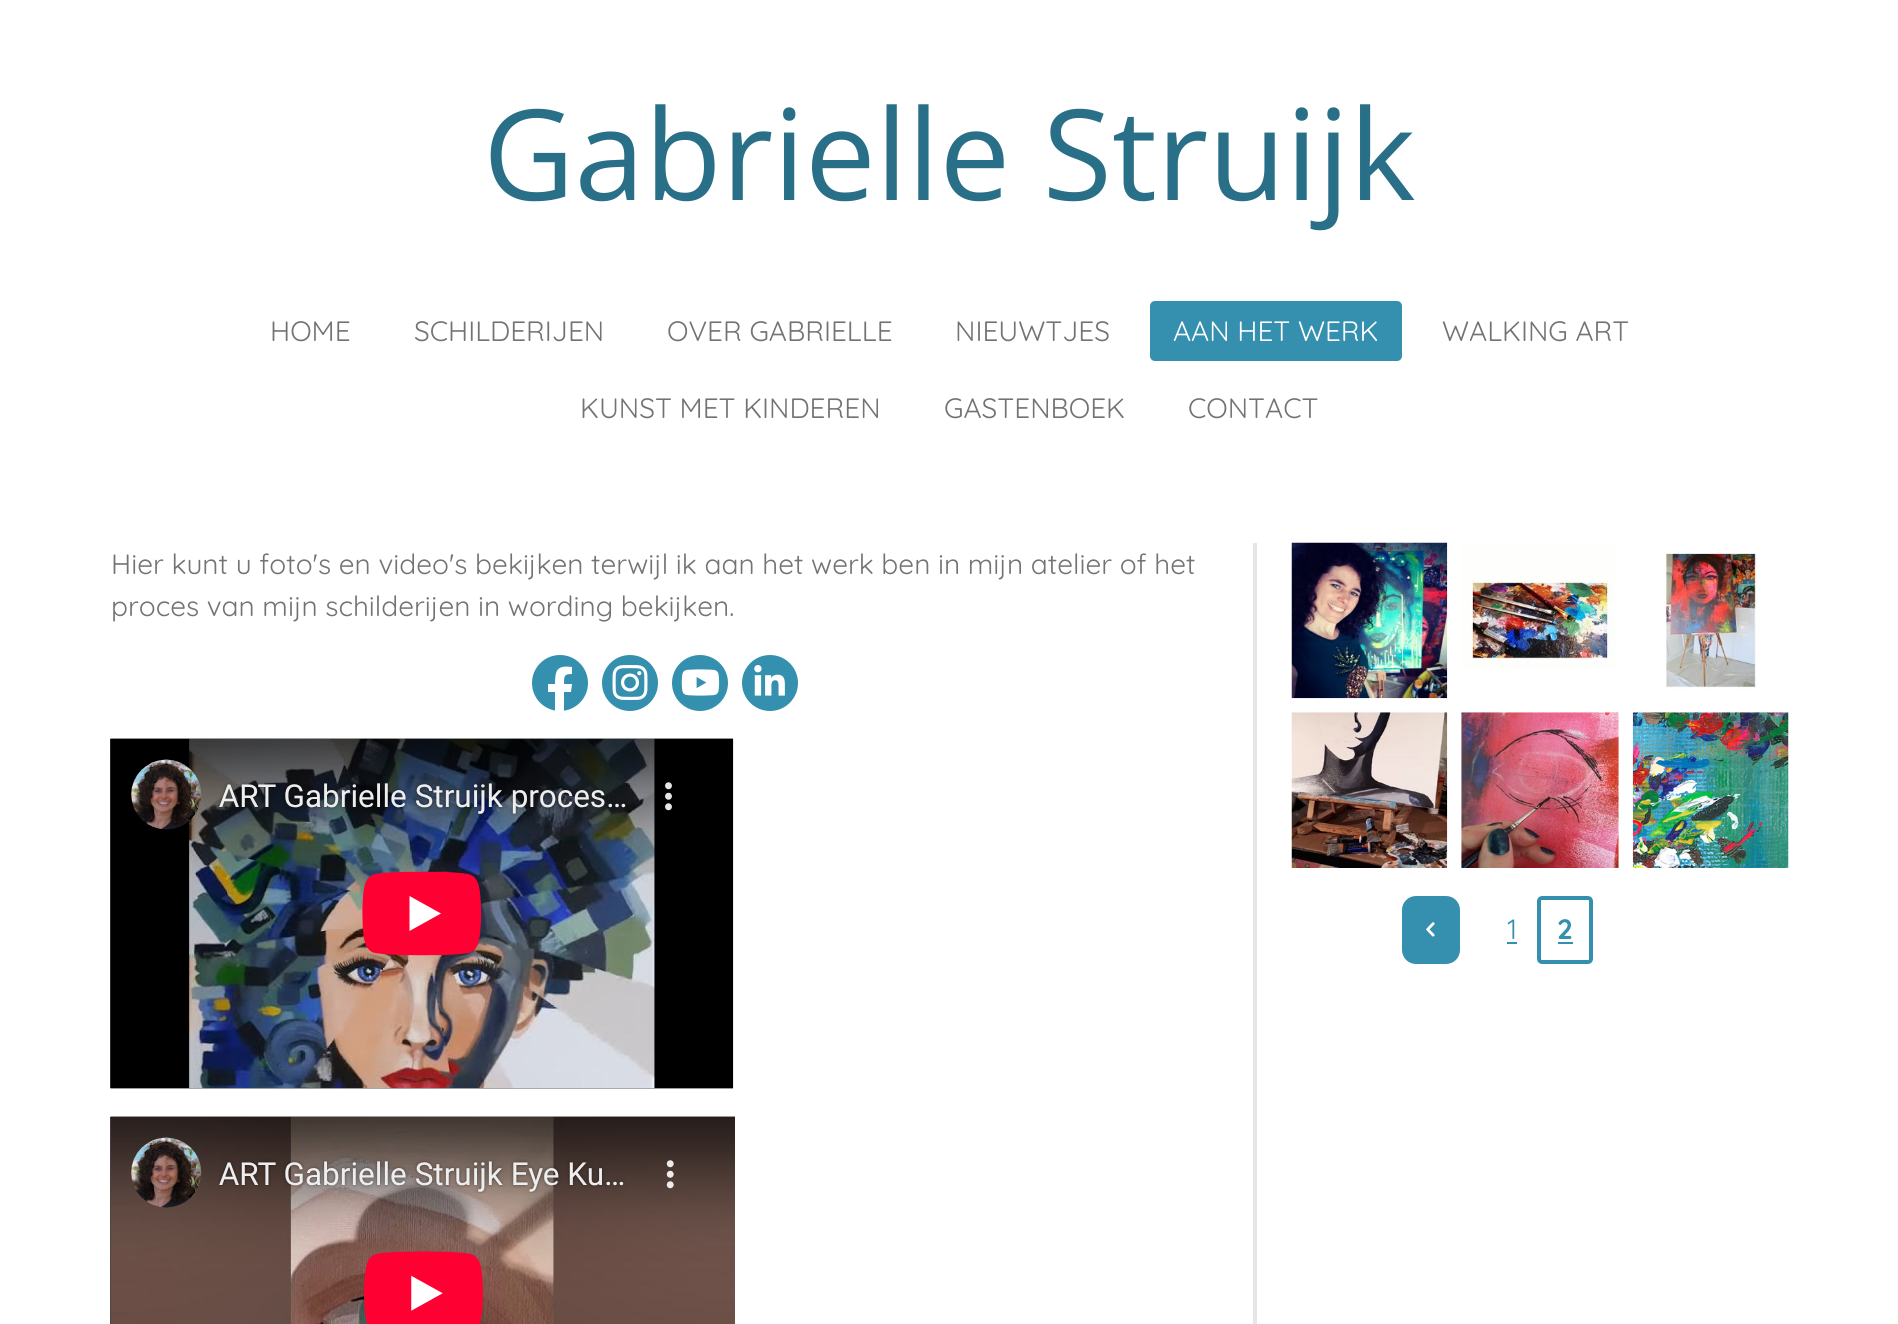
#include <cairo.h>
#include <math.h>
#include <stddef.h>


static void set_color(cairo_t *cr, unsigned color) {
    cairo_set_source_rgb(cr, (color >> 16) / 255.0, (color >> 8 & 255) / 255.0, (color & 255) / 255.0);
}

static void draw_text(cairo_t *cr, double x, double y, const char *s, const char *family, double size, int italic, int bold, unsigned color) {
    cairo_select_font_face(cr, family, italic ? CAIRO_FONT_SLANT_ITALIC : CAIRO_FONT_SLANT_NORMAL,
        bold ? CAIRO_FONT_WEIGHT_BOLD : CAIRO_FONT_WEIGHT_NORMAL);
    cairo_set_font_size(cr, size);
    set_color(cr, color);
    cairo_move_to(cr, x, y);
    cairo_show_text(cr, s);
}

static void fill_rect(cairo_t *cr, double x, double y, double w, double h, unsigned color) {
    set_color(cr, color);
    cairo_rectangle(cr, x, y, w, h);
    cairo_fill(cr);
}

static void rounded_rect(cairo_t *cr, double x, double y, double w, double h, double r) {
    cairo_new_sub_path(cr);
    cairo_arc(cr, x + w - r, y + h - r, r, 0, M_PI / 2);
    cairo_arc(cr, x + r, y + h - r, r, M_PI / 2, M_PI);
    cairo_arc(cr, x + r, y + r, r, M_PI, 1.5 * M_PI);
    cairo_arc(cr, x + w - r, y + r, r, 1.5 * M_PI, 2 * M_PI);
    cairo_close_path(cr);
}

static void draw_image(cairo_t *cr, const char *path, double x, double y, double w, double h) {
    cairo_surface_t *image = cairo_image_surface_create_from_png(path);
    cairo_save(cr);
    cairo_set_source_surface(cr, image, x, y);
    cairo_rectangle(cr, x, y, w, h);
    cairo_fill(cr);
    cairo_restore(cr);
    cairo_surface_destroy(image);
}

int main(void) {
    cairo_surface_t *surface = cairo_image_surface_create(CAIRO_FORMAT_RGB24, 1898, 1324);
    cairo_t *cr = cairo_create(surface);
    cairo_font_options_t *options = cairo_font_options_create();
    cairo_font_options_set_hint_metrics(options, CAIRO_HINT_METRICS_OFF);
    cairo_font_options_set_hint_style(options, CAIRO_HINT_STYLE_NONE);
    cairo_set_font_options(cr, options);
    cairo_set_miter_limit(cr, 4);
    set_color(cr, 0xFFFFFF);
    cairo_paint(cr);
    draw_text(cr, 483, 200, "Gabrielle Struijk", "Open Sans", 126, 0, 0, 0x296F87);
    draw_text(cr, 270, 341, "HOME", "Quicksand", 28, 0, 0, 0x737373);
    draw_text(cr, 414, 341, "SCHILDERIJEN", "Quicksand", 28, 0, 0, 0x737373);
    draw_text(cr, 667, 341, "OVER GABRIELLE", "Quicksand", 28, 0, 0, 0x737373);
    draw_text(cr, 955, 341, "NIEUWTJES", "Quicksand", 28, 0, 0, 0x737373);
    set_color(cr, 0x3490AE);
    rounded_rect(cr, 1150, 301, 252, 60, 5);
    cairo_fill(cr);
    draw_text(cr, 1173, 341, "AAN HET WERK", "Quicksand", 28, 0, 0, 0xFFFFFF);
    draw_text(cr, 1442, 341, "WALKING ART", "Quicksand", 28, 0, 0, 0x737373);
    draw_text(cr, 580, 418, "KUNST MET KINDEREN", "Quicksand", 28, 0, 0, 0x737373);
    draw_text(cr, 944, 418, "GASTENBOEK", "Quicksand", 28, 0, 0, 0x737373);
    draw_text(cr, 1188, 418, "CONTACT", "Quicksand", 28, 0, 0, 0x737373);
    draw_text(cr, 111, 574, "Hier kunt u foto's en video's bekijken terwijl ik aan het werk ben in mijn atelier of het", "Quicksand", 28, 0, 0, 0x737373);
    draw_text(cr, 111, 616, "proces van mijn schilderijen in wording bekijken.", "Quicksand", 28, 0, 0, 0x737373);
    set_color(cr, 0x3490AE);
    cairo_new_path(cr);
    cairo_arc(cr, 560, 683, 28, 0, 2 * M_PI);
    cairo_fill(cr);
    set_color(cr, 0xFFFFFF);
    cairo_new_path(cr);
    cairo_move_to(cr, 571, 692);
    cairo_line_to(cr, 564, 692);
    cairo_line_to(cr, 564, 711);
    cairo_curve_to(cr, 561, 711, 558, 711, 555, 711);
    cairo_line_to(cr, 555, 692);
    cairo_line_to(cr, 548, 692);
    cairo_line_to(cr, 548, 684);
    cairo_line_to(cr, 555, 684);
    cairo_curve_to(cr, 555, 670, 557, 665, 572, 667);
    cairo_line_to(cr, 572, 674);
    cairo_curve_to(cr, 564, 674, 564, 676, 564, 684);
    cairo_line_to(cr, 572, 684);
    cairo_close_path(cr);
    cairo_fill(cr);
    set_color(cr, 0x3490AE);
    cairo_arc(cr, 630, 683, 28, 0, 2 * M_PI);
    cairo_fill(cr);
    draw_image(cr, "assets/img1.png", 612, 665, 36, 35);
    cairo_arc(cr, 700, 683, 28, 0, 2 * M_PI);
    cairo_fill(cr);
    draw_image(cr, "assets/img2.png", 681, 669, 39, 27);
    cairo_arc(cr, 770, 683, 28, 0, 2 * M_PI);
    cairo_fill(cr);
    draw_image(cr, "assets/img3.png", 754, 665, 31, 31);
    draw_image(cr, "assets/img4.png", 110, 738, 624, 351);
    draw_image(cr, "assets/img5.png", 110, 1116, 625, 208);
    fill_rect(cr, 1253, 543, 4, 781, 0xE6E6E6);
    draw_image(cr, "assets/img6.png", 1291, 542, 157, 157);
    draw_image(cr, "assets/img7.png", 1462, 543, 155, 126);
    draw_image(cr, "assets/img8.png", 1665, 553, 95, 136);
    draw_image(cr, "assets/img9.png", 1291, 712, 157, 156);
    draw_image(cr, "assets/img10.png", 1461, 712, 158, 156);
    draw_image(cr, "assets/img11.png", 1632, 712, 157, 156);
    set_color(cr, 0x3490AE);
    rounded_rect(cr, 1402, 896, 58, 68, 14);
    cairo_fill(cr);
    draw_image(cr, "assets/img12.png", 1426, 922, 9, 15);
    draw_text(cr, 1507, 939, "1", "Quicksand", 28, 0, 0, 0x3490AE);
    fill_rect(cr, 1507, 942, 10, 2, 0x3490AE);
    rounded_rect(cr, 1539, 898, 52, 64, 3);
    cairo_set_line_width(cr, 4);
    cairo_stroke(cr);
    draw_text(cr, 1557, 939, "2", "Quicksand", 28, 0, 1, 0x3490AE);
    fill_rect(cr, 1558, 942, 15, 2, 0x3490AE);
    cairo_surface_write_to_png(surface, "output.png");
    cairo_font_options_destroy(options);
    cairo_destroy(cr);
    cairo_surface_destroy(surface);
    return 0;
}
